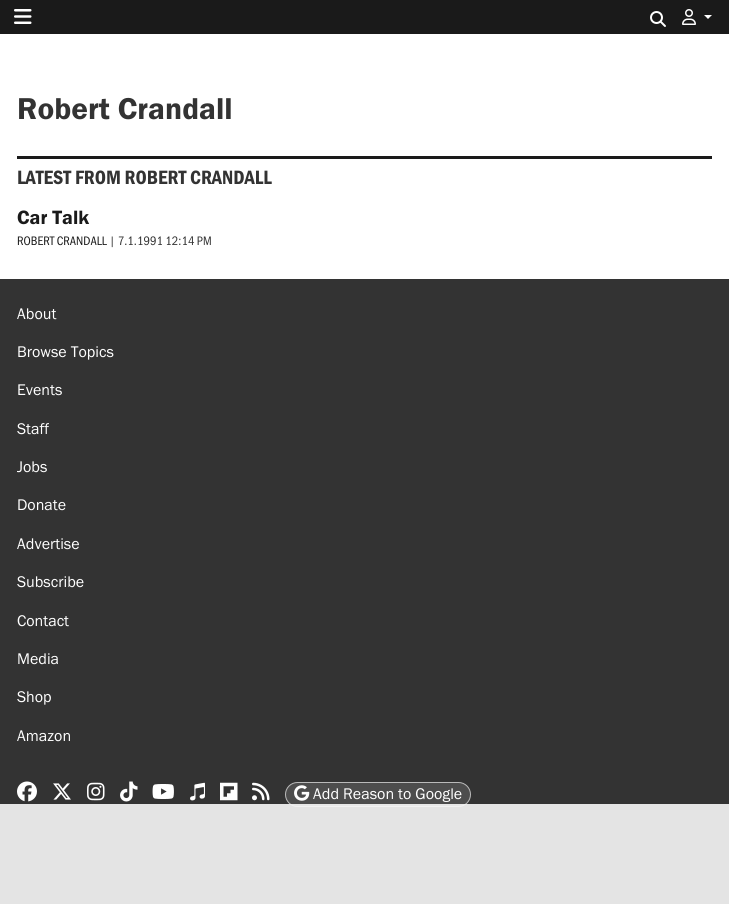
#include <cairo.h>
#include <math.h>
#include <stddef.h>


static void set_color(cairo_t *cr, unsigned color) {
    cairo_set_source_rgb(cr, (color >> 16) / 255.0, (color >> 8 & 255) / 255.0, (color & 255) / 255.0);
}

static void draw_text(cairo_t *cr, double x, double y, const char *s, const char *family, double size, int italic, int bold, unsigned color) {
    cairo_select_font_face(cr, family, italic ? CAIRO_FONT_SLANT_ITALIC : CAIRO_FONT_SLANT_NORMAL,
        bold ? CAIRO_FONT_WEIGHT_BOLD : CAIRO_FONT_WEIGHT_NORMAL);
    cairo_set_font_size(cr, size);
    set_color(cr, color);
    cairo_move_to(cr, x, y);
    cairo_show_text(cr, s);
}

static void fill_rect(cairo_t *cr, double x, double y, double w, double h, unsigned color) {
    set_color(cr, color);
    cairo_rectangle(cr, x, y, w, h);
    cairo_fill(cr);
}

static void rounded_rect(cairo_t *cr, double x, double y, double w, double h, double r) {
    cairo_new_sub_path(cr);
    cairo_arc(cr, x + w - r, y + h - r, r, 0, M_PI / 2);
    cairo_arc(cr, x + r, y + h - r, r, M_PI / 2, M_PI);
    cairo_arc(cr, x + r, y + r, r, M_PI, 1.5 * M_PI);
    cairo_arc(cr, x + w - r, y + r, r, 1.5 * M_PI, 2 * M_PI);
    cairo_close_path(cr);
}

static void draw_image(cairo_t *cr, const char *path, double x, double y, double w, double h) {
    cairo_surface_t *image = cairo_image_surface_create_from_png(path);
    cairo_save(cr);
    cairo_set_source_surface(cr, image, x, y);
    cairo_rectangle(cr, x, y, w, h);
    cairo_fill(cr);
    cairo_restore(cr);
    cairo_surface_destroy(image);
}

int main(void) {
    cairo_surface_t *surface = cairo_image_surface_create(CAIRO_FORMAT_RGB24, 729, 904);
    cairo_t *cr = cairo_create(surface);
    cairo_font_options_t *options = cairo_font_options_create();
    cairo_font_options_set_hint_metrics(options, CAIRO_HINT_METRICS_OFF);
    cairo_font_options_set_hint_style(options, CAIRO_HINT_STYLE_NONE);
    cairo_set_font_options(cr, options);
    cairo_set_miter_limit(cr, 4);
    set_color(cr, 0xFFFFFF);
    cairo_paint(cr);
    fill_rect(cr, 0, 0, 729, 34, 0x1A1A1A);
    draw_image(cr, "assets/img1.png", 14, 9, 18, 15);
    draw_image(cr, "assets/img2.png", 650, 11, 16, 16);
    draw_image(cr, "assets/img3.png", 682, 9, 14, 16);
    set_color(cr, 0xFFFFFF);
    cairo_new_path(cr);
    cairo_move_to(cr, 704, 15);
    cairo_line_to(cr, 712, 15);
    cairo_line_to(cr, 708, 19);
    cairo_close_path(cr);
    cairo_fill(cr);
    draw_text(cr, 17, 119, "Robert Crandall", "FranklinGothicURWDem", 31.25, 0, 0, 0x333333);
    fill_rect(cr, 17, 156, 695, 3, 0x1A1A1A);
    draw_text(cr, 17, 184, "LATEST FROM ROBERT CRANDALL", "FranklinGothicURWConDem", 20, 0, 0, 0x333333);
    draw_text(cr, 17, 224, "Car Talk", "FranklinGothicURWDem", 20, 0, 0, 0x1A1A1A);
    draw_text(cr, 17, 245, "ROBERT CRANDALL", "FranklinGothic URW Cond", 12.75, 0, 0, 0x1A1A1A);
    draw_text(cr, 109, 245, "| 7.1.1991 12:14 PM", "FranklinGothic URW Cond", 12.75, 0, 0, 0x333333);
    fill_rect(cr, 0, 279, 729, 625, 0x333333);
    draw_text(cr, 17, 319, "About", "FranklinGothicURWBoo", 16, 0, 0, 0xFFFFFF);
    draw_text(cr, 17, 357, "Browse Topics", "FranklinGothicURWBoo", 16, 0, 0, 0xFFFFFF);
    draw_text(cr, 17, 395, "Events", "FranklinGothicURWBoo", 16, 0, 0, 0xFFFFFF);
    draw_text(cr, 17, 434, "Staff", "FranklinGothicURWBoo", 16, 0, 0, 0xFFFFFF);
    draw_text(cr, 17, 472, "Jobs", "FranklinGothicURWBoo", 16, 0, 0, 0xFFFFFF);
    draw_text(cr, 17, 510, "Donate", "FranklinGothicURWBoo", 16, 0, 0, 0xFFFFFF);
    draw_text(cr, 17, 549, "Advertise", "FranklinGothicURWBoo", 16, 0, 0, 0xFFFFFF);
    draw_text(cr, 17, 587, "Subscribe", "FranklinGothicURWBoo", 16, 0, 0, 0xFFFFFF);
    draw_text(cr, 17, 626, "Contact", "FranklinGothicURWBoo", 16, 0, 0, 0xFFFFFF);
    draw_text(cr, 17, 664, "Media", "FranklinGothicURWBoo", 16, 0, 0, 0xFFFFFF);
    draw_text(cr, 17, 702, "Shop", "FranklinGothicURWBoo", 16, 0, 0, 0xFFFFFF);
    draw_text(cr, 17, 741, "Amazon", "FranklinGothicURWBoo", 16, 0, 0, 0xFFFFFF);
    draw_image(cr, "assets/img4.png", 17, 781, 20, 21);
    draw_image(cr, "assets/img5.png", 53, 783, 18, 17);
    draw_image(cr, "assets/img6.png", 87, 782, 18, 19);
    draw_image(cr, "assets/img7.png", 120, 781, 18, 21);
    draw_image(cr, "assets/img8.png", 152, 784, 22, 15);
    draw_image(cr, "assets/img9.png", 190, 782, 15, 19);
    draw_image(cr, "assets/img10.png", 220, 782, 18, 19);
    draw_image(cr, "assets/img11.png", 252, 782, 18, 19);
    set_color(cr, 0x4D4D4D);
    rounded_rect(cr, 285.5, 782.5, 185, 24, 12);
    cairo_fill_preserve(cr);
    set_color(cr, 0xBABABA);
    cairo_set_line_width(cr, 1);
    cairo_stroke(cr);
    draw_image(cr, "assets/img12.png", 294, 785, 16, 16);
    draw_text(cr, 313, 799, "Add Reason to Google", "FranklinGothicURWBoo", 16, 0, 0, 0xFFFFFF);
    cairo_set_source_rgba(cr, 0.969, 0.969, 0.969, 0.9);
    cairo_rectangle(cr, 0, 804, 729, 100);
    cairo_fill(cr);
    cairo_surface_write_to_png(surface, "output.png");
    cairo_font_options_destroy(options);
    cairo_destroy(cr);
    cairo_surface_destroy(surface);
    return 0;
}
